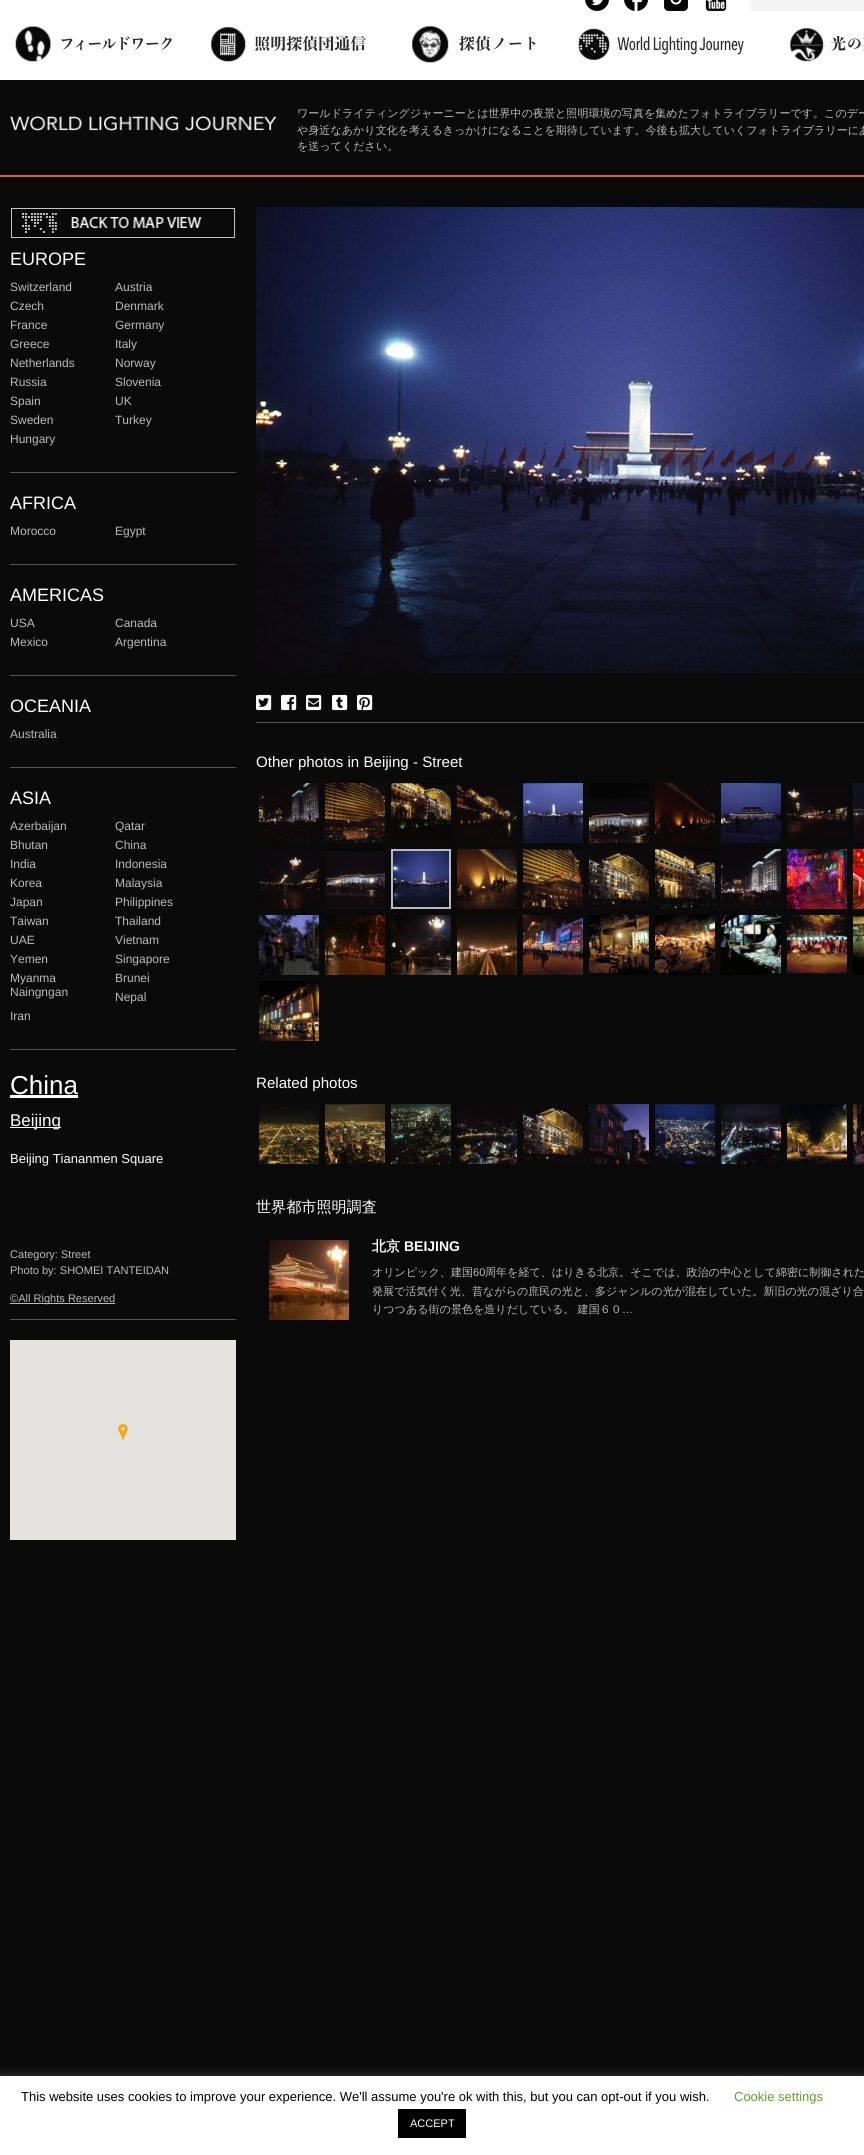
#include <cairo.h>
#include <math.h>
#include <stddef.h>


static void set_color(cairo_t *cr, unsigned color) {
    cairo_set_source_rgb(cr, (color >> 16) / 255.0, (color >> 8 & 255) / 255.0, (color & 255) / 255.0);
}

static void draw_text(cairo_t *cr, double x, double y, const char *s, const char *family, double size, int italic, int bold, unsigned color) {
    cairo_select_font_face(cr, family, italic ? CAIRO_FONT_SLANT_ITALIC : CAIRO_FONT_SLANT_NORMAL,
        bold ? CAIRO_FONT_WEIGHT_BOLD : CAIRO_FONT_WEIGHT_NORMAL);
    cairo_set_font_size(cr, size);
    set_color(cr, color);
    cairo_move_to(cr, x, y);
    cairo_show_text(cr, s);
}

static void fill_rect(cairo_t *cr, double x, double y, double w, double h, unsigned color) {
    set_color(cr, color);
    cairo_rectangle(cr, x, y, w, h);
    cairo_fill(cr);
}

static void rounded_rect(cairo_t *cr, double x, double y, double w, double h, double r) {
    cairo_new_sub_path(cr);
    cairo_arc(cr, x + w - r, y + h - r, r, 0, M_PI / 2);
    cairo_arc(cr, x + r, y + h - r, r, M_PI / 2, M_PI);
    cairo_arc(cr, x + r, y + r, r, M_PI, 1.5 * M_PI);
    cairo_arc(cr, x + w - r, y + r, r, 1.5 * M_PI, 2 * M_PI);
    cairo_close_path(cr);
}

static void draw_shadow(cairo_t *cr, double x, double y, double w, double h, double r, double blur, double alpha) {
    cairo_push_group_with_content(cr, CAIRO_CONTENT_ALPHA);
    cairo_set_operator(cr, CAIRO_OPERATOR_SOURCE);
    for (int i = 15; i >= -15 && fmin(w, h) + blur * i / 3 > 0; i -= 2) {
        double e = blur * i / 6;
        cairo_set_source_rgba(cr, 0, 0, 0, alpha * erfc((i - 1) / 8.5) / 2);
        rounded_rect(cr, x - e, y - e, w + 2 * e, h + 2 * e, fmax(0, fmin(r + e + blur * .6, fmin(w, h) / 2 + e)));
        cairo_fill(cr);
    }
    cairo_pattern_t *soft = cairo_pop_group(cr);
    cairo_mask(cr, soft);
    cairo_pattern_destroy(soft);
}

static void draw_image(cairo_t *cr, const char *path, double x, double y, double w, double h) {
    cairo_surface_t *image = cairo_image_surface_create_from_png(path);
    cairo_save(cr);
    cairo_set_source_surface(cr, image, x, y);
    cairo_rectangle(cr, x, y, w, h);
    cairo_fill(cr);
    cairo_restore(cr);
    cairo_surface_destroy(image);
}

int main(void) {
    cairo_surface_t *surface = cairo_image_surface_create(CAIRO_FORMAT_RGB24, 864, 2155);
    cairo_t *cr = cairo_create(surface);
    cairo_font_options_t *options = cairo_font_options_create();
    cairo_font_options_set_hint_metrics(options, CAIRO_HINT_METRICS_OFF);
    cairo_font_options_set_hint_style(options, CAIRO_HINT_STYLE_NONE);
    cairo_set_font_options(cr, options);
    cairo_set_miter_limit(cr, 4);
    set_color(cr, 0x090909);
    cairo_paint(cr);
    fill_rect(cr, 0, 0, 864, 80, 0xFFFFFF);
    draw_image(cr, "assets/img1.png", 585, 0, 24, 11);
    draw_image(cr, "assets/img2.png", 624, 0, 24, 11);
    draw_image(cr, "assets/img3.png", 664, 0, 24, 11);
    draw_image(cr, "assets/img4.png", 705, 0, 22, 11);
    fill_rect(cr, 751, 0, 113, 11, 0xF4F4F4);
    draw_image(cr, "assets/img5.png", 15, 26, 157, 36);
    draw_image(cr, "assets/img6.png", 211, 27, 155, 35);
    draw_image(cr, "assets/img7.png", 412, 26, 124, 37);
    draw_image(cr, "assets/img8.png", 578, 28, 166, 32);
    draw_image(cr, "assets/img9.png", 790, 28, 74, 34);
    fill_rect(cr, 0, 175, 864, 2, 0xCF6430);
    draw_image(cr, "assets/img10.png", 10, 116, 267, 15);
    draw_text(cr, 297, 117, "ワールドライティングジャーニーとは世界中の夜景と照明環境の写真を集めたフォトライブラリーです。このデー", "WenQuanYi Zen Hei Medium", 11.05, 0, 0, 0xBBBBBB);
    draw_text(cr, 297, 134, "や身近なあかり文化を考えるきっかけになることを期待しています。今後も拡大していくフォトライブラリーにあ", "WenQuanYi Zen Hei Medium", 11.05, 0, 0, 0xBBBBBB);
    draw_text(cr, 297, 150, "を送ってください。", "WenQuanYi Zen Hei Medium", 11.05, 0, 0, 0xBBBBBB);
    draw_image(cr, "assets/img11.png", 11, 208, 225, 30);
    draw_text(cr, 10, 265, "EUROPE", "Liberation Sans", 18, 0, 0, 0xFFFFFF);
    draw_text(cr, 10, 291, "Switzerland", "Liberation Sans", 12, 0, 0, 0xBBBBBB);
    draw_text(cr, 115, 291, "Austria", "Liberation Sans", 12, 0, 0, 0xBBBBBB);
    draw_text(cr, 10, 310, "Czech", "Liberation Sans", 12, 0, 0, 0xBBBBBB);
    draw_text(cr, 115, 310, "Denmark", "Liberation Sans", 12, 0, 0, 0xBBBBBB);
    draw_text(cr, 10, 329, "France", "Liberation Sans", 12, 0, 0, 0xBBBBBB);
    draw_text(cr, 115, 329, "Germany", "Liberation Sans", 12, 0, 0, 0xBBBBBB);
    draw_text(cr, 10, 348, "Greece", "Liberation Sans", 12, 0, 0, 0xBBBBBB);
    draw_text(cr, 115, 348, "Italy", "Liberation Sans", 12, 0, 0, 0xBBBBBB);
    draw_text(cr, 10, 367, "Netherlands", "Liberation Sans", 12, 0, 0, 0xBBBBBB);
    draw_text(cr, 115, 367, "Norway", "Liberation Sans", 12, 0, 0, 0xBBBBBB);
    draw_text(cr, 10, 386, "Russia", "Liberation Sans", 12, 0, 0, 0xBBBBBB);
    draw_text(cr, 115, 386, "Slovenia", "Liberation Sans", 12, 0, 0, 0xBBBBBB);
    draw_text(cr, 10, 405, "Spain", "Liberation Sans", 12, 0, 0, 0xBBBBBB);
    draw_text(cr, 115, 405, "UK", "Liberation Sans", 12, 0, 0, 0xBBBBBB);
    draw_text(cr, 10, 424, "Sweden", "Liberation Sans", 12, 0, 0, 0xBBBBBB);
    draw_text(cr, 115, 424, "Turkey", "Liberation Sans", 12, 0, 0, 0xBBBBBB);
    draw_text(cr, 10, 443, "Hungary", "Liberation Sans", 12, 0, 0, 0xBBBBBB);
    fill_rect(cr, 10, 472, 226, 1, 0x535353);
    draw_text(cr, 10, 509, "AFRICA", "Liberation Sans", 18, 0, 0, 0xFFFFFF);
    draw_text(cr, 10, 535, "Morocco", "Liberation Sans", 12, 0, 0, 0xBBBBBB);
    draw_text(cr, 115, 535, "Egypt", "Liberation Sans", 12, 0, 0, 0xBBBBBB);
    fill_rect(cr, 10, 564, 226, 1, 0x535353);
    draw_text(cr, 10, 601, "AMERICAS", "Liberation Sans", 18, 0, 0, 0xFFFFFF);
    draw_text(cr, 10, 627, "USA", "Liberation Sans", 12, 0, 0, 0xBBBBBB);
    draw_text(cr, 115, 627, "Canada", "Liberation Sans", 12, 0, 0, 0xBBBBBB);
    draw_text(cr, 10, 646, "Mexico", "Liberation Sans", 12, 0, 0, 0xBBBBBB);
    draw_text(cr, 115, 646, "Argentina", "Liberation Sans", 12, 0, 0, 0xBBBBBB);
    fill_rect(cr, 10, 675, 226, 1, 0x535353);
    draw_text(cr, 10, 712, "OCEANIA", "Liberation Sans", 18, 0, 0, 0xFFFFFF);
    draw_text(cr, 10, 738, "Australia", "Liberation Sans", 12, 0, 0, 0xBBBBBB);
    fill_rect(cr, 10, 767, 226, 1, 0x535353);
    draw_text(cr, 10, 804, "ASIA", "Liberation Sans", 18, 0, 0, 0xFFFFFF);
    draw_text(cr, 10, 830, "Azerbaijan", "Liberation Sans", 12, 0, 0, 0xBBBBBB);
    draw_text(cr, 115, 830, "Qatar", "Liberation Sans", 12, 0, 0, 0xBBBBBB);
    draw_text(cr, 10, 849, "Bhutan", "Liberation Sans", 12, 0, 0, 0xBBBBBB);
    draw_text(cr, 115, 849, "China", "Liberation Sans", 12, 0, 0, 0xBBBBBB);
    draw_text(cr, 10, 868, "India", "Liberation Sans", 12, 0, 0, 0xBBBBBB);
    draw_text(cr, 115, 868, "Indonesia", "Liberation Sans", 12, 0, 0, 0xBBBBBB);
    draw_text(cr, 10, 887, "Korea", "Liberation Sans", 12, 0, 0, 0xBBBBBB);
    draw_text(cr, 115, 887, "Malaysia", "Liberation Sans", 12, 0, 0, 0xBBBBBB);
    draw_text(cr, 10, 906, "Japan", "Liberation Sans", 12, 0, 0, 0xBBBBBB);
    draw_text(cr, 115, 906, "Philippines", "Liberation Sans", 12, 0, 0, 0xBBBBBB);
    draw_text(cr, 10, 925, "Taiwan", "Liberation Sans", 12, 0, 0, 0xBBBBBB);
    draw_text(cr, 115, 925, "Thailand", "Liberation Sans", 12, 0, 0, 0xBBBBBB);
    draw_text(cr, 10, 944, "UAE", "Liberation Sans", 12, 0, 0, 0xBBBBBB);
    draw_text(cr, 115, 944, "Vietnam", "Liberation Sans", 12, 0, 0, 0xBBBBBB);
    draw_text(cr, 10, 963, "Yemen", "Liberation Sans", 12, 0, 0, 0xBBBBBB);
    draw_text(cr, 115, 963, "Singapore", "Liberation Sans", 12, 0, 0, 0xBBBBBB);
    draw_text(cr, 10, 982, "Myanma", "Liberation Sans", 12, 0, 0, 0xBBBBBB);
    draw_text(cr, 10, 996, "Naingngan", "Liberation Sans", 12, 0, 0, 0xBBBBBB);
    draw_text(cr, 115, 982, "Brunei", "Liberation Sans", 12, 0, 0, 0xBBBBBB);
    draw_text(cr, 115, 1001, "Nepal", "Liberation Sans", 12, 0, 0, 0xBBBBBB);
    draw_text(cr, 10, 1020, "Iran", "Liberation Sans", 12, 0, 0, 0xBBBBBB);
    fill_rect(cr, 10, 1049, 226, 1, 0x535353);
    draw_text(cr, 10, 1094, "China", "Liberation Sans", 26, 0, 0, 0xFFFFFF);
    fill_rect(cr, 10, 1095, 68, 3, 0xFFFFFF);
    fill_rect(cr, 10, 1127, 51, 1, 0xFFFFFF);
    draw_text(cr, 10, 1126, "Beijing", "Liberation Sans", 17, 0, 0, 0xFFFFFF);
    draw_text(cr, 10, 1163, "Beijing Tiananmen Square", "Liberation Sans", 13, 0, 0, 0xFFFFFF);
    draw_text(cr, 10, 1258, "Category: Street", "Liberation Sans", 11.05, 0, 0, 0xBBBBBB);
    draw_text(cr, 10, 1274, "Photo by: SHOMEI TANTEIDAN", "Liberation Sans", 11.05, 0, 0, 0xBBBBBB);
    fill_rect(cr, 10, 1303, 105, 1, 0xBBBBBB);
    draw_text(cr, 10, 1302, "©All Rights Reserved", "Liberation Sans", 11.05, 0, 0, 0xBBBBBB);
    fill_rect(cr, 10, 1319, 226, 1, 0x535353);
    fill_rect(cr, 10, 1340, 226, 200, 0xE5E3DF);
    draw_image(cr, "assets/img12.png", 118, 1424, 10, 16);
    draw_image(cr, "assets/img13.png", 256, 207, 608, 466);
    draw_image(cr, "assets/img14.png", 256, 694, 16, 17);
    draw_image(cr, "assets/img15.png", 281, 694, 16, 17);
    draw_image(cr, "assets/img16.png", 306, 694, 16, 17);
    draw_image(cr, "assets/img17.png", 332, 694, 16, 17);
    draw_image(cr, "assets/img18.png", 357, 694, 16, 17);
    fill_rect(cr, 256, 722, 608, 1, 0x535353);
    draw_text(cr, 256, 767, "Other photos in Beijing - Street", "Liberation Sans", 15.1, 0, 0, 0xFFFFFF);
    draw_image(cr, "assets/img19.png", 259, 783, 60, 60);
    draw_image(cr, "assets/img20.png", 325, 783, 60, 60);
    draw_image(cr, "assets/img21.png", 391, 783, 60, 59);
    draw_image(cr, "assets/img22.png", 457, 783, 60, 60);
    draw_image(cr, "assets/img23.png", 523, 783, 60, 60);
    draw_image(cr, "assets/img24.png", 589, 783, 60, 60);
    draw_image(cr, "assets/img25.png", 655, 783, 60, 60);
    draw_image(cr, "assets/img26.png", 721, 783, 60, 60);
    draw_image(cr, "assets/img27.png", 787, 786, 60, 54);
    draw_image(cr, "assets/img28.png", 853, 783, 11, 60);
    draw_image(cr, "assets/img29.png", 259, 853, 60, 56);
    draw_image(cr, "assets/img30.png", 325, 849, 60, 60);
    cairo_rectangle(cr, 392, 850, 58, 58);
    set_color(cr, 0xBBBBBB);
    cairo_stroke(cr);
    draw_image(cr, "assets/img31.png", 393, 851, 56, 56);
    draw_image(cr, "assets/img32.png", 457, 849, 60, 60);
    draw_image(cr, "assets/img33.png", 523, 849, 60, 60);
    draw_image(cr, "assets/img34.png", 589, 849, 60, 60);
    draw_image(cr, "assets/img35.png", 655, 849, 60, 60);
    draw_image(cr, "assets/img36.png", 721, 849, 60, 60);
    draw_image(cr, "assets/img37.png", 787, 849, 60, 60);
    draw_image(cr, "assets/img38.png", 853, 849, 11, 60);
    draw_image(cr, "assets/img39.png", 259, 915, 60, 60);
    draw_image(cr, "assets/img40.png", 325, 915, 60, 60);
    draw_image(cr, "assets/img41.png", 391, 915, 60, 60);
    draw_image(cr, "assets/img42.png", 457, 915, 60, 60);
    draw_image(cr, "assets/img43.png", 523, 915, 60, 60);
    draw_image(cr, "assets/img44.png", 589, 915, 60, 60);
    draw_image(cr, "assets/img45.png", 655, 915, 60, 60);
    draw_image(cr, "assets/img46.png", 721, 915, 60, 60);
    draw_image(cr, "assets/img47.png", 787, 915, 60, 60);
    draw_image(cr, "assets/img48.png", 853, 915, 11, 60);
    draw_image(cr, "assets/img49.png", 259, 981, 60, 60);
    draw_text(cr, 256, 1088, "Related photos", "Liberation Sans", 15.1, 0, 0, 0xFFFFFF);
    draw_image(cr, "assets/img50.png", 259, 1104, 60, 60);
    draw_image(cr, "assets/img51.png", 325, 1104, 60, 60);
    draw_image(cr, "assets/img52.png", 391, 1104, 60, 60);
    draw_image(cr, "assets/img53.png", 457, 1105, 60, 59);
    draw_image(cr, "assets/img34.png", 523, 1104, 60, 60);
    draw_image(cr, "assets/img54.png", 589, 1104, 60, 60);
    draw_image(cr, "assets/img55.png", 655, 1104, 60, 60);
    draw_image(cr, "assets/img56.png", 721, 1104, 60, 60);
    draw_image(cr, "assets/img57.png", 787, 1104, 60, 60);
    draw_image(cr, "assets/img58.png", 853, 1104, 11, 60);
    draw_text(cr, 256, 1212, "世界都市照明調査", "WenQuanYi Zen Hei Medium", 15.1, 0, 0, 0xFFFFFF);
    draw_image(cr, "assets/img59.png", 269, 1240, 80, 80);
    draw_text(cr, 372, 1251, "北京", "WenQuanYi Zen Hei", 14, 0, 1, 0xFFFFFF);
    draw_text(cr, 404, 1251, "BEIJING", "Liberation Sans", 14, 0, 1, 0xFFFFFF);
    draw_text(cr, 372, 1276, "オリンピック、建国", "WenQuanYi Zen Hei Medium", 11.05, 0, 0, 0xBBBBBB);
    draw_text(cr, 473, 1276, "60", "Liberation Sans", 11.05, 0, 0, 0xBBBBBB);
    draw_text(cr, 485, 1276, "周年を経て、はりきる北京。そこでは、政治の中心として綿密に制御された", "WenQuanYi Zen Hei Medium", 11.05, 0, 0, 0xBBBBBB);
    draw_text(cr, 372, 1295, "発展で活気付く光、昔ながらの庶民の光と、多ジャンルの光が混在していた。新旧の光の混ざり合", "WenQuanYi Zen Hei Medium", 11.05, 0, 0, 0xBBBBBB);
    draw_text(cr, 372, 1313, "りつつある街の景色を造りだしている。 建国６０", "WenQuanYi Zen Hei Medium", 11.05, 0, 0, 0xBBBBBB);
    draw_text(cr, 622, 1313, "…", "Liberation Sans", 11.05, 0, 0, 0xBBBBBB);
    set_color(cr, 0xACABAB);
    draw_shadow(cr, 0, 2075, 864, 79, 0, 5, 0.3);
    fill_rect(cr, 0, 2076, 864, 79, 0xFFFFFF);
    draw_text(cr, 21, 2101, "This website uses cookies to improve your experience. We'll assume you're ok with this, but you can opt-out if you wish.", "Liberation Sans", 13, 0, 0, 0x000000);
    draw_text(cr, 734, 2101, "Cookie settings", "Liberation Sans", 13, 0, 0, 0x62A329);
    fill_rect(cr, 398, 2109, 68, 29, 0x000000);
    draw_text(cr, 410, 2127, "ACCEPT", "Liberation Sans", 11, 0, 0, 0xFFFFFF);
    cairo_surface_write_to_png(surface, "output.png");
    cairo_font_options_destroy(options);
    cairo_destroy(cr);
    cairo_surface_destroy(surface);
    return 0;
}
